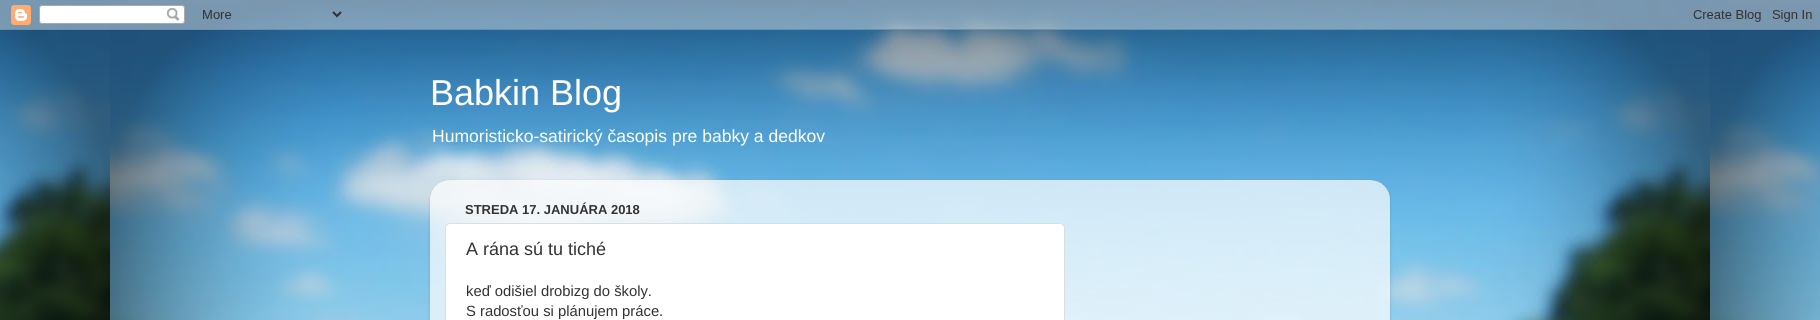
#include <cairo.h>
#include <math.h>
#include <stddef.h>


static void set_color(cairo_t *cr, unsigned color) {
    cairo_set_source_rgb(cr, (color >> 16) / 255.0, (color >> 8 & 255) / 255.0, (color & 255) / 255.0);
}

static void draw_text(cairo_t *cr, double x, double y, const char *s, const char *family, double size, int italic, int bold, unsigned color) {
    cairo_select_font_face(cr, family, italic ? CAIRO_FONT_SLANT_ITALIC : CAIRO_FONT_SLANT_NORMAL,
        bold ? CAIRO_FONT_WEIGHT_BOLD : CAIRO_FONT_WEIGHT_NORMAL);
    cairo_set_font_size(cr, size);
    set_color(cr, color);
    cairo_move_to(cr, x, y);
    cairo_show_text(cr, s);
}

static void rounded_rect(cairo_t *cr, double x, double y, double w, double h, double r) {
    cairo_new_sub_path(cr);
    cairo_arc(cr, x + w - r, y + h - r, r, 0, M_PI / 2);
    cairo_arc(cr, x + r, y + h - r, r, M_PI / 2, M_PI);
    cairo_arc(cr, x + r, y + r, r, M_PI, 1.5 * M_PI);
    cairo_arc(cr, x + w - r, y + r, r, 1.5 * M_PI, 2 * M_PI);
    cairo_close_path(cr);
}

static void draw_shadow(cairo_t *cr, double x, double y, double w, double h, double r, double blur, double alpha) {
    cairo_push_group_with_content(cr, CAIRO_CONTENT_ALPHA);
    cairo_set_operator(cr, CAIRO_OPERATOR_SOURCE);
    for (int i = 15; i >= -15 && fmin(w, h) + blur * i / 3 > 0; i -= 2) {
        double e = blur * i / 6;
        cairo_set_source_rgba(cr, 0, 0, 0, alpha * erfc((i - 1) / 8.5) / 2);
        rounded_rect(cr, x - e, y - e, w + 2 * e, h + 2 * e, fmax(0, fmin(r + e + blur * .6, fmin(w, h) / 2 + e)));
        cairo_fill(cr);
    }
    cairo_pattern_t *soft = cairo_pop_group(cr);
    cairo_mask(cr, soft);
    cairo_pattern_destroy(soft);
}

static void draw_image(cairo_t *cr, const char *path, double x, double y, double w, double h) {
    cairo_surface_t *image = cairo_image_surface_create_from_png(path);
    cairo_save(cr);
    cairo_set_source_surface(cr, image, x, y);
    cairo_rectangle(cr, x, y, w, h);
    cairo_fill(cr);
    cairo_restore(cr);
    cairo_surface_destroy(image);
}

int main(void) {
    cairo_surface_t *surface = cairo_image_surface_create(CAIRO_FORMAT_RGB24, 1820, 320);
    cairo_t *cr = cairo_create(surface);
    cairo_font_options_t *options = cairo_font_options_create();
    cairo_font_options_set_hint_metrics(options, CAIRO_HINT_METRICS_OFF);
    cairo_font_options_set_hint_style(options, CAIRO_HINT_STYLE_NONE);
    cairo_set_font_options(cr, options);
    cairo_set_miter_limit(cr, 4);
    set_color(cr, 0xFFFFFF);
    cairo_paint(cr);
    draw_image(cr, "assets/img1.png", 0, 0, 1820, 320);
    draw_image(cr, "assets/img2.png", 0, 0, 1820, 30);
    draw_text(cr, 430, 105, "Babkin Blog", "Liberation Sans", 36, 0, 0, 0xFFFFFF);
    draw_text(cr, 432, 142, "Humoristicko-satirický časopis pre babky a dedkov", "Liberation Sans", 17.55, 0, 0, 0xFFFFFF);
    cairo_save(cr);
    cairo_set_fill_rule(cr, CAIRO_FILL_RULE_EVEN_ODD);
    cairo_new_path(cr);
    cairo_move_to(cr, 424, 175);
    cairo_line_to(cr, 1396, 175);
    cairo_line_to(cr, 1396, 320);
    cairo_line_to(cr, 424, 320);
    cairo_close_path(cr);
    cairo_move_to(cr, 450, 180);
    cairo_line_to(cr, 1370, 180);
    cairo_curve_to(cr, 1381, 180, 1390, 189, 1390, 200);
    cairo_line_to(cr, 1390, 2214);
    cairo_line_to(cr, 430, 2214);
    cairo_line_to(cr, 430, 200);
    cairo_curve_to(cr, 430, 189, 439, 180, 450, 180);
    cairo_close_path(cr);
    cairo_clip(cr);
    set_color(cr, 0x000000);
    draw_shadow(cr, 430, 181, 960, 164, 20, 1.5, 0.15);
    cairo_restore(cr);
    draw_image(cr, "assets/img3.png", 430, 180, 960, 140);
    draw_text(cr, 465, 214, "STREDA 17. JANUÁRA 2018", "Liberation Sans", 13, 0, 1, 0x333333);
    set_color(cr, 0xFFFFFF);
    rounded_rect(cr, 445.5, 223.5, 619, 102, 4.5);
    cairo_fill_preserve(cr);
    set_color(cr, 0xDDDDDD);
    cairo_set_line_width(cr, 1);
    cairo_stroke(cr);
    draw_text(cr, 466, 255, "A rána sú tu tiché", "Liberation Sans", 18, 0, 0, 0x333333);
    draw_text(cr, 466, 296, "keď odišiel drobizg do školy.", "Liberation Sans", 14.8, 0, 0, 0x333333);
    draw_text(cr, 466, 316, "S radosťou si plánujem práce.", "Liberation Sans", 14.8, 0, 0, 0x333333);
    cairo_surface_write_to_png(surface, "output.png");
    cairo_font_options_destroy(options);
    cairo_destroy(cr);
    cairo_surface_destroy(surface);
    return 0;
}
